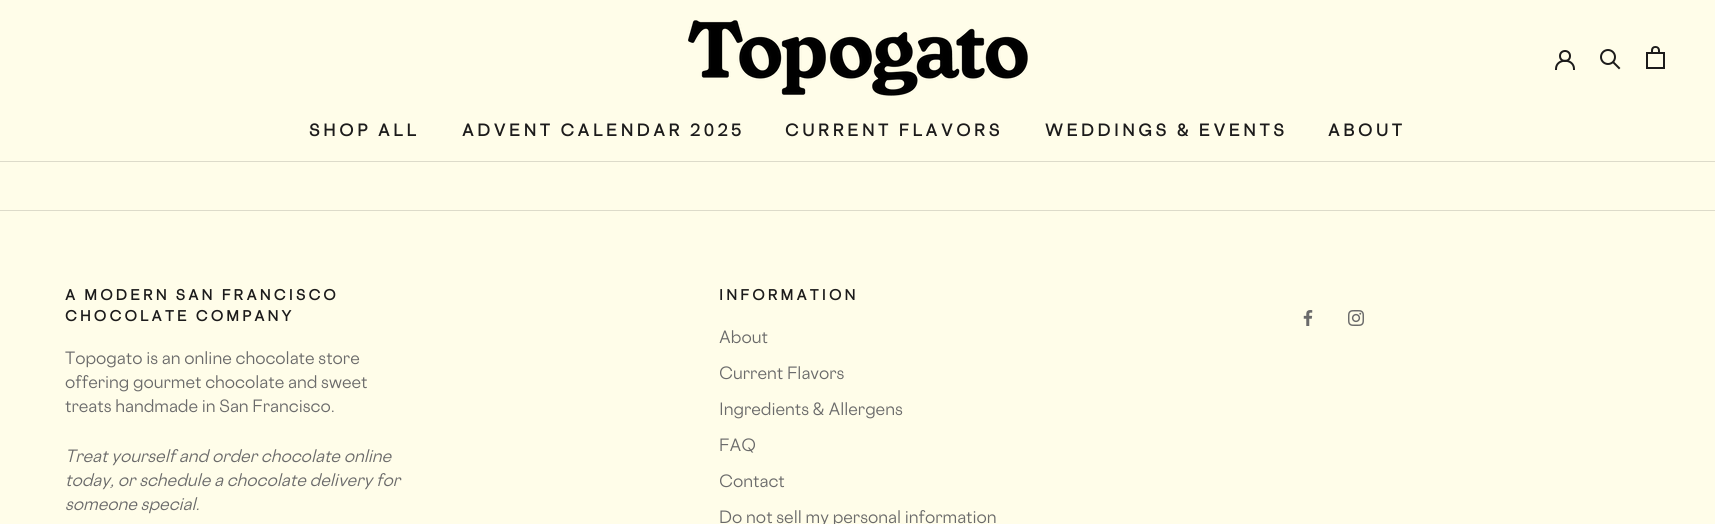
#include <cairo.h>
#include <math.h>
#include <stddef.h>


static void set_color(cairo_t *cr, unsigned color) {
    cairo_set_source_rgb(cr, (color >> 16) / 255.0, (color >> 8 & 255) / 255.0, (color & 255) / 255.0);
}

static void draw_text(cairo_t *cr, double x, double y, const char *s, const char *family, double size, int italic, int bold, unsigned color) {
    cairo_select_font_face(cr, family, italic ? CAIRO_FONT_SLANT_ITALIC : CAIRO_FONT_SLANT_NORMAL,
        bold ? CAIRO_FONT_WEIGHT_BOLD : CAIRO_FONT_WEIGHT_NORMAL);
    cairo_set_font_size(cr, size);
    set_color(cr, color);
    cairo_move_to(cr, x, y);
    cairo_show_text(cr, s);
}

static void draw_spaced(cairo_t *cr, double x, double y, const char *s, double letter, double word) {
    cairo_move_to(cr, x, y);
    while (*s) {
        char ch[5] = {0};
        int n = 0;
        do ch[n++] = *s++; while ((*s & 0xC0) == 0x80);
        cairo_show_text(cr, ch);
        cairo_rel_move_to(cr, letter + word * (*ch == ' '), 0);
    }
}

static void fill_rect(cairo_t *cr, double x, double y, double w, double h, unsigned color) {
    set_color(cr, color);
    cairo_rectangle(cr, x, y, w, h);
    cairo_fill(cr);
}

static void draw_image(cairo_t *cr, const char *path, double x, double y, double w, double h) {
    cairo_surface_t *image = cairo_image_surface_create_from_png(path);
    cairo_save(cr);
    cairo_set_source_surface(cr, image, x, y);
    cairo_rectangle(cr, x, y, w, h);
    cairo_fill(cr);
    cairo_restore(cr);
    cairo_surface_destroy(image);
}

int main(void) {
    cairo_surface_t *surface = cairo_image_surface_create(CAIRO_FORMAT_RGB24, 1715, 524);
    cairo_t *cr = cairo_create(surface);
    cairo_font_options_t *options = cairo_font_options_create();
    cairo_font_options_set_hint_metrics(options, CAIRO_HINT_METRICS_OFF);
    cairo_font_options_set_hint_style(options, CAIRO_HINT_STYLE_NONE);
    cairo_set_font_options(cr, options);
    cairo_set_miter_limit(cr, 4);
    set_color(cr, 0xFFFDE9);
    cairo_paint(cr);
    fill_rect(cr, 0, 161, 1715, 1, 0xDDDBCA);
    draw_image(cr, "assets/img1.png", 688, 20, 340, 76);
    cairo_new_path(cr);
    cairo_move_to(cr, 1556, 69);
    cairo_curve_to(cr, 1556, 58, 1574, 58, 1574, 69);
    set_color(cr, 0x1C1B1B);
    cairo_set_line_cap(cr, CAIRO_LINE_CAP_SQUARE);
    cairo_stroke(cr);
    cairo_arc(cr, 1565, 56, 5, 0, 2 * M_PI);
    cairo_set_line_cap(cr, CAIRO_LINE_CAP_BUTT);
    cairo_stroke(cr);
    cairo_new_path(cr);
    cairo_move_to(cr, 1619, 68);
    cairo_line_to(cr, 1613.5, 62.5);
    cairo_set_line_cap(cr, CAIRO_LINE_CAP_SQUARE);
    cairo_stroke(cr);
    cairo_arc(cr, 1608, 57, 7, 0, 2 * M_PI);
    cairo_set_line_cap(cr, CAIRO_LINE_CAP_BUTT);
    cairo_stroke(cr);
    draw_image(cr, "assets/img2.png", 1646, 46, 19, 23);
    cairo_select_font_face(cr, "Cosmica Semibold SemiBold", CAIRO_FONT_SLANT_NORMAL, CAIRO_FONT_WEIGHT_NORMAL);
    cairo_set_font_size(cr, 16);
    draw_spaced(cr, 309, 136, "SHOP ALL", 3.25, 0);
    draw_spaced(cr, 462, 136, "ADVENT CALENDAR 2025", 3.25, 0);
    draw_spaced(cr, 785, 136, "CURRENT FLAVORS", 3.25, 0);
    draw_spaced(cr, 1045, 136, "WEDDINGS & EVENTS", 3.25, 0);
    draw_spaced(cr, 1328, 136, "ABOUT", 3.25, 0);
    fill_rect(cr, 0, 210, 1715, 1, 0xDDDBCA);
    cairo_set_font_size(cr, 14);
    set_color(cr, 0x1C1B1B);
    draw_spaced(cr, 65, 300, "A MODERN SAN FRANCISCO", 2.8, 0);
    draw_spaced(cr, 65, 321, "CHOCOLATE COMPANY", 2.8, 0);
    draw_text(cr, 65, 364, "Topogato is an online chocolate store", "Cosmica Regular", 16, 0, 0, 0x6A6A6A);
    draw_text(cr, 65, 388, "offering gourmet chocolate and sweet", "Cosmica Regular", 16, 0, 0, 0x6A6A6A);
    draw_text(cr, 65, 412, "treats handmade in San Francisco.", "Cosmica Regular", 16, 0, 0, 0x6A6A6A);
    draw_text(cr, 65, 462, "Treat yourself and order chocolate online", "Cosmica Regular", 16, 1, 0, 0x6A6A6A);
    draw_text(cr, 65, 486, "today, or schedule a chocolate delivery for", "Cosmica Regular", 16, 1, 0, 0x6A6A6A);
    draw_text(cr, 65, 510, "someone special.", "Cosmica Regular", 16, 1, 0, 0x6A6A6A);
    cairo_select_font_face(cr, "Cosmica Semibold SemiBold", CAIRO_FONT_SLANT_NORMAL, CAIRO_FONT_WEIGHT_NORMAL);
    cairo_set_font_size(cr, 14);
    set_color(cr, 0x1C1B1B);
    draw_spaced(cr, 719, 300, "INFORMATION", 2.8, 0);
    draw_text(cr, 719, 343, "About", "Cosmica Regular", 16, 0, 0, 0x6A6A6A);
    draw_text(cr, 719, 379, "Current Flavors", "Cosmica Regular", 16, 0, 0, 0x6A6A6A);
    draw_text(cr, 719, 415, "Ingredients & Allergens", "Cosmica Regular", 16, 0, 0, 0x6A6A6A);
    draw_text(cr, 719, 451, "FAQ", "Cosmica Regular", 16, 0, 0, 0x6A6A6A);
    draw_text(cr, 719, 487, "Contact", "Cosmica Regular", 16, 0, 0, 0x6A6A6A);
    draw_text(cr, 719, 523, "Do not sell my personal information", "Cosmica Regular", 16, 0, 0, 0x6A6A6A);
    draw_image(cr, "assets/img3.png", 1303, 310, 10, 16);
    draw_image(cr, "assets/img4.png", 1348, 310, 16, 16);
    cairo_surface_write_to_png(surface, "output.png");
    cairo_font_options_destroy(options);
    cairo_destroy(cr);
    cairo_surface_destroy(surface);
    return 0;
}
